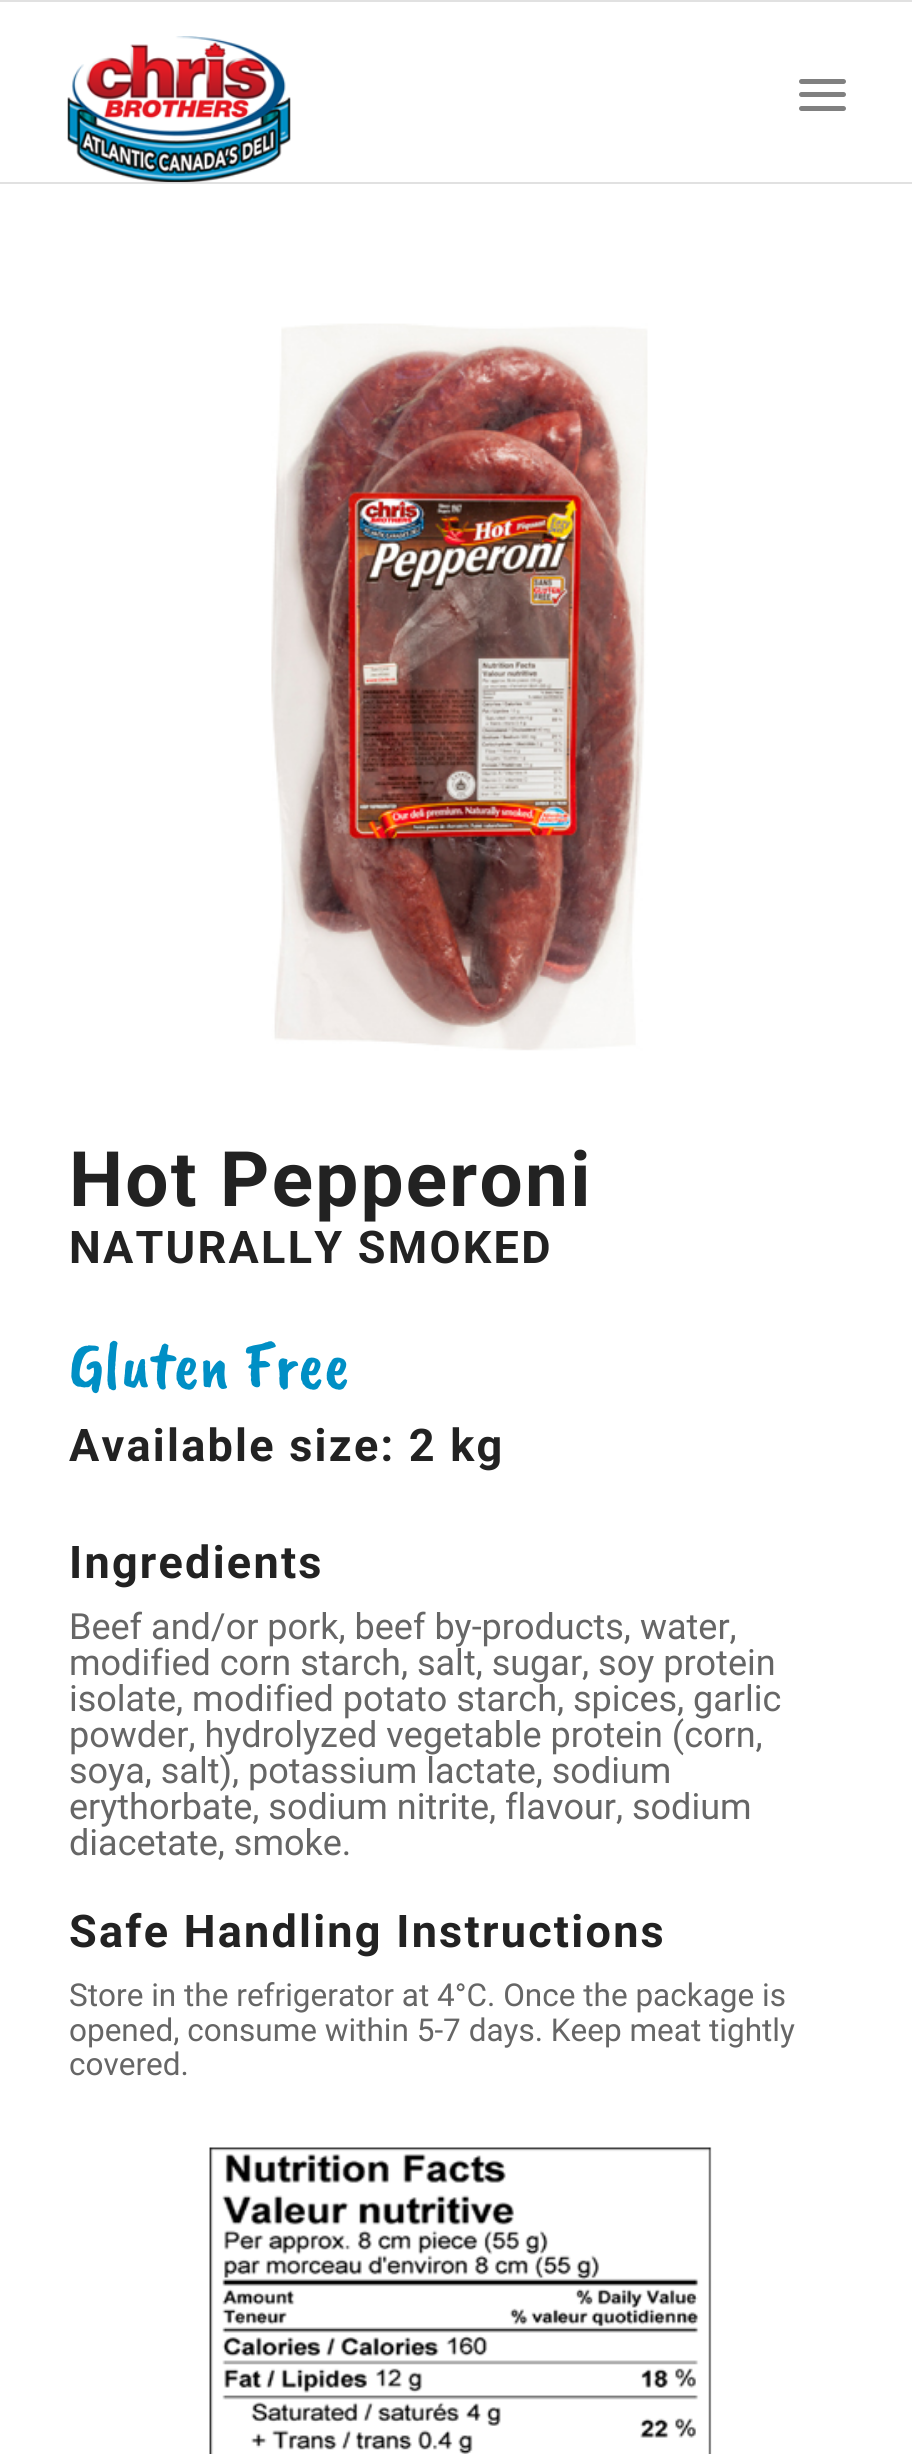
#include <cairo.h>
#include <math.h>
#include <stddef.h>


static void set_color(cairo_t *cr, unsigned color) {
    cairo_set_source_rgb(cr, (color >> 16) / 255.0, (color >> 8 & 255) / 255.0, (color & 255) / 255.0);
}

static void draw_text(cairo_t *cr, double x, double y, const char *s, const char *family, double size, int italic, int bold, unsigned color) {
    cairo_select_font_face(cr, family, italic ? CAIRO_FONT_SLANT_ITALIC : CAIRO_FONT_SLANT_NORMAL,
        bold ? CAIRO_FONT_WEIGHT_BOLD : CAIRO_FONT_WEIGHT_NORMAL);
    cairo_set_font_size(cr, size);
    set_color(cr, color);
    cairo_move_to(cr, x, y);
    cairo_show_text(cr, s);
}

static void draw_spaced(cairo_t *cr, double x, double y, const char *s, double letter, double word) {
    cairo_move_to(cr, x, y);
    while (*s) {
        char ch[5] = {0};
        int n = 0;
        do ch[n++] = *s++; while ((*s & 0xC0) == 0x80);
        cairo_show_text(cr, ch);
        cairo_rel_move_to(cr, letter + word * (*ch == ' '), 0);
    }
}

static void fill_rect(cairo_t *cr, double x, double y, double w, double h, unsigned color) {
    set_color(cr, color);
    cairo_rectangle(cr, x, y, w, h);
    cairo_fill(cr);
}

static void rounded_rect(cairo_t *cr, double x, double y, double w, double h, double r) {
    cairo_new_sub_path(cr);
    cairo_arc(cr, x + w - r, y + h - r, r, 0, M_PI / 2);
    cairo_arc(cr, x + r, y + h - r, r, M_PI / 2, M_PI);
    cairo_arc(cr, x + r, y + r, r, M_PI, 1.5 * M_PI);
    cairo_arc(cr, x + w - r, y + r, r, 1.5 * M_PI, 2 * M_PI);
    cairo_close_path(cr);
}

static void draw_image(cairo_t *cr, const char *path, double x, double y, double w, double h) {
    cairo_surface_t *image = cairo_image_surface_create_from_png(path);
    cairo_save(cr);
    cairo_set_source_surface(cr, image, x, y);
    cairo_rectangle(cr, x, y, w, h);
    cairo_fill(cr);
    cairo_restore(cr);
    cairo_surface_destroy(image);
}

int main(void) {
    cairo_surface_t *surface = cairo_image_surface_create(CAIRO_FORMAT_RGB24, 912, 2454);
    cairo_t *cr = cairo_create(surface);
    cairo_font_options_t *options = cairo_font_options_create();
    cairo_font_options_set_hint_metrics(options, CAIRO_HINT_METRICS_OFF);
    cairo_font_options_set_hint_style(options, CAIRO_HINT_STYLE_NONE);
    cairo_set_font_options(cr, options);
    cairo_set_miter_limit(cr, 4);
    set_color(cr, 0xFFFFFF);
    cairo_paint(cr);
    fill_rect(cr, 0, 0, 912, 2, 0xE1E1E1);
    fill_rect(cr, 0, 182, 912, 2, 0xE1E1E1);
    draw_image(cr, "assets/img1.png", 67, 36, 224, 147);
    set_color(cr, 0x808080);
    rounded_rect(cr, 799, 92, 47, 5, 2.5);
    cairo_fill(cr);
    rounded_rect(cr, 799, 79, 47, 5, 2.5);
    cairo_fill(cr);
    rounded_rect(cr, 799, 106, 47, 5, 2.5);
    cairo_fill(cr);
    draw_image(cr, "assets/img2.png", 271, 323, 377, 728);
    cairo_select_font_face(cr, "Roboto", CAIRO_FONT_SLANT_NORMAL, CAIRO_FONT_WEIGHT_BOLD);
    cairo_set_font_size(cr, 76.5);
    set_color(cr, 0x222222);
    draw_spaced(cr, 69, 1206, "Hot Pepperoni", 2.25, 0);
    cairo_set_font_size(cr, 45);
    draw_spaced(cr, 69, 1263, "NATURALLY SMOKED", 2.25, 0);
    draw_text(cr, 69, 1387, "Gluten Free", "Caveat Brush", 67.5, 0, 0, 0x008FC5);
    cairo_select_font_face(cr, "Roboto", CAIRO_FONT_SLANT_NORMAL, CAIRO_FONT_WEIGHT_BOLD);
    cairo_set_font_size(cr, 45);
    set_color(cr, 0x222222);
    draw_spaced(cr, 69, 1461, "Available size: 2 kg", 2.25, 0);
    draw_spaced(cr, 69, 1578, "Ingredients", 2.25, 0);
    draw_text(cr, 69, 1639, "Beef and/or pork, beef by-products, water,", "Roboto", 36, 0, 0, 0x666666);
    draw_text(cr, 69, 1675, "modified corn starch, salt, sugar, soy protein", "Roboto", 36, 0, 0, 0x666666);
    draw_text(cr, 69, 1711, "isolate, modified potato starch, spices, garlic", "Roboto", 36, 0, 0, 0x666666);
    draw_text(cr, 69, 1747, "powder, hydrolyzed vegetable protein (corn,", "Roboto", 36, 0, 0, 0x666666);
    draw_text(cr, 69, 1783, "soya, salt), potassium lactate, sodium", "Roboto", 36, 0, 0, 0x666666);
    draw_text(cr, 69, 1819, "erythorbate, sodium nitrite, flavour, sodium", "Roboto", 36, 0, 0, 0x666666);
    draw_text(cr, 69, 1855, "diacetate, smoke.", "Roboto", 36, 0, 0, 0x666666);
    cairo_select_font_face(cr, "Roboto", CAIRO_FONT_SLANT_NORMAL, CAIRO_FONT_WEIGHT_BOLD);
    cairo_set_font_size(cr, 45);
    set_color(cr, 0x222222);
    draw_spaced(cr, 69, 1947, "Safe Handling Instructions", 2.25, 0);
    draw_text(cr, 69, 2006, "Store in the refrigerator at 4°C. Once the package is", "Roboto", 31.5, 0, 0, 0x666666);
    draw_text(cr, 69, 2041, "opened, consume within 5-7 days. Keep meat tightly", "Roboto", 31.5, 0, 0, 0x666666);
    draw_text(cr, 69, 2075, "covered.", "Roboto", 31.5, 0, 0, 0x666666);
    draw_image(cr, "assets/img3.png", 209, 2147, 503, 307);
    cairo_surface_write_to_png(surface, "output.png");
    cairo_font_options_destroy(options);
    cairo_destroy(cr);
    cairo_surface_destroy(surface);
    return 0;
}
